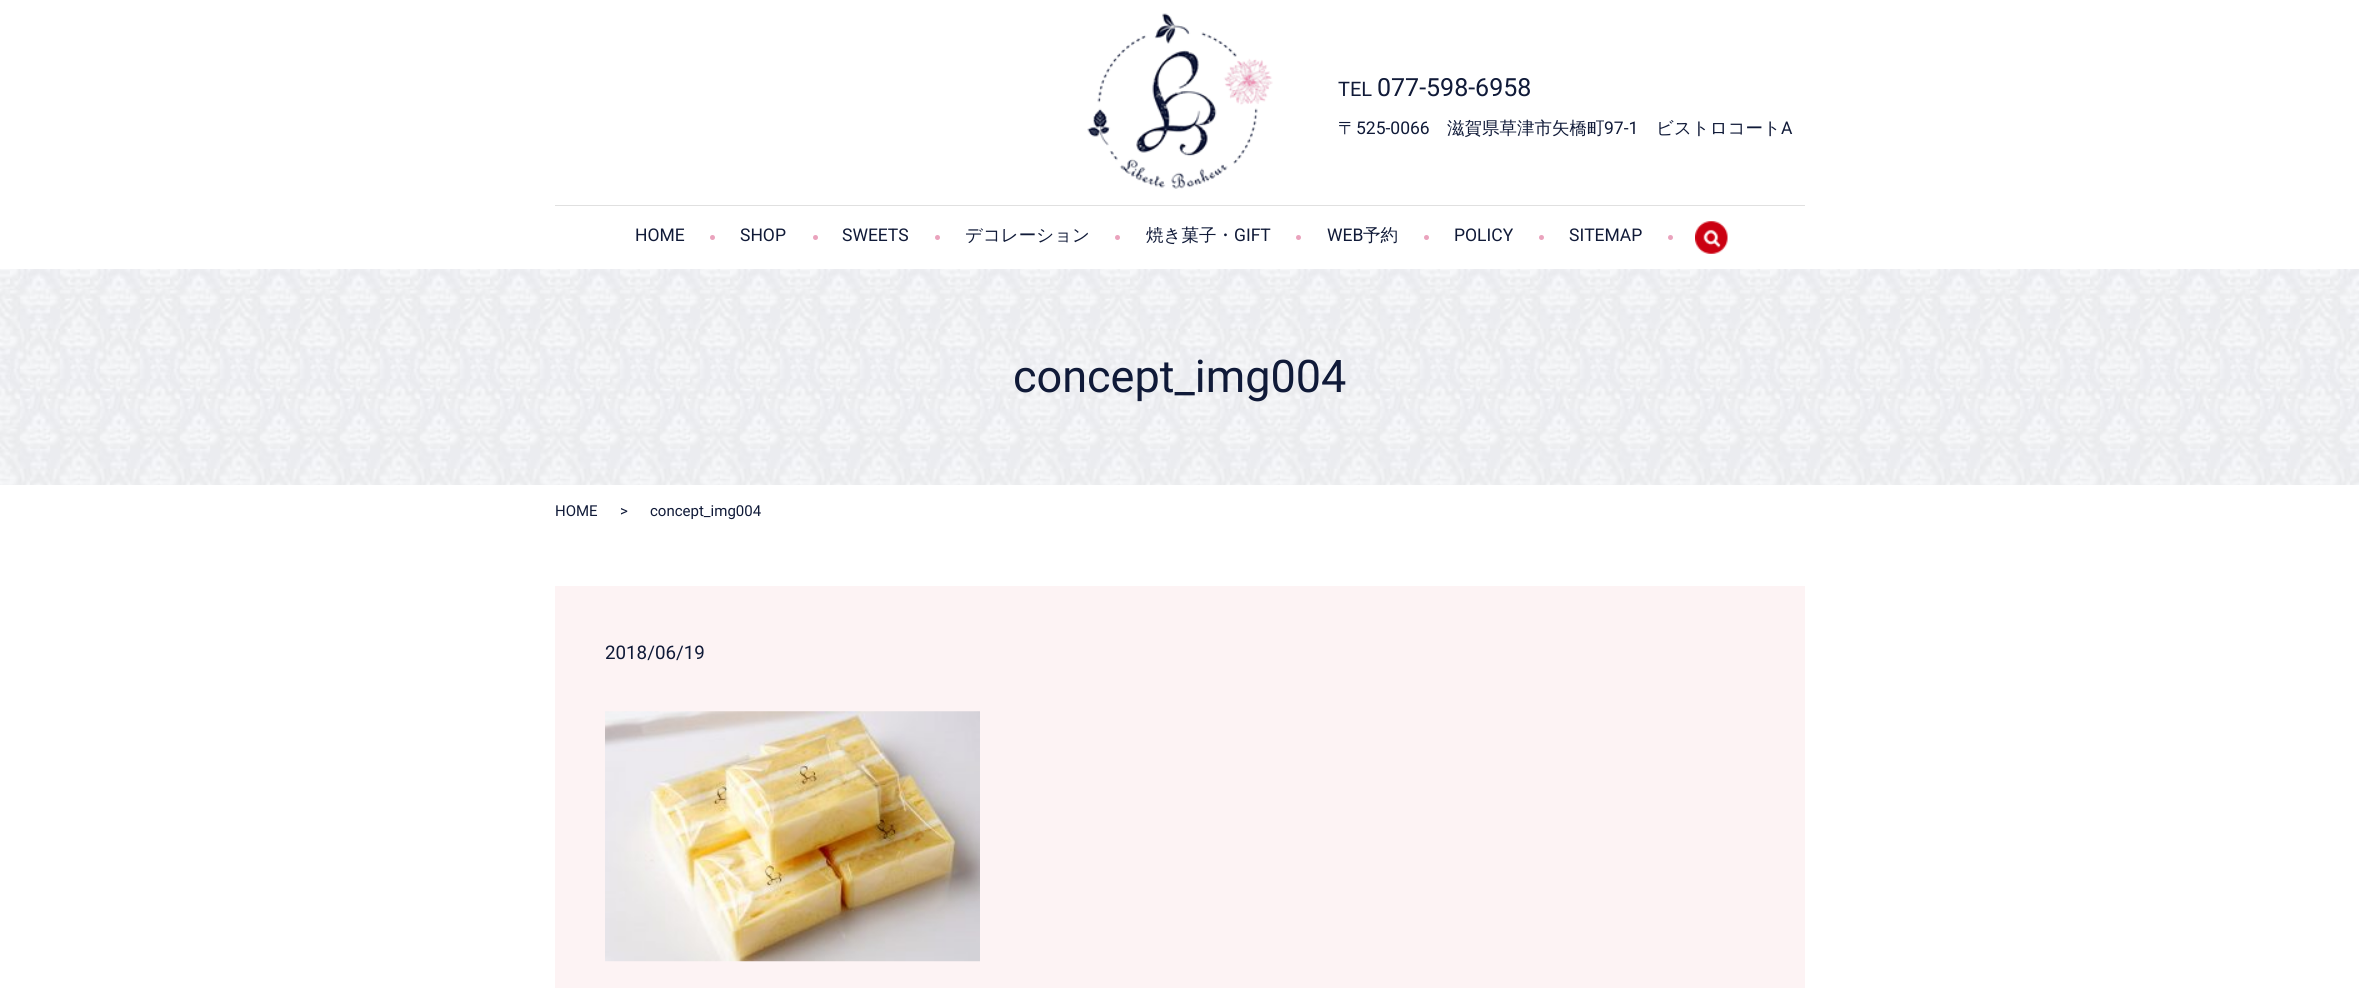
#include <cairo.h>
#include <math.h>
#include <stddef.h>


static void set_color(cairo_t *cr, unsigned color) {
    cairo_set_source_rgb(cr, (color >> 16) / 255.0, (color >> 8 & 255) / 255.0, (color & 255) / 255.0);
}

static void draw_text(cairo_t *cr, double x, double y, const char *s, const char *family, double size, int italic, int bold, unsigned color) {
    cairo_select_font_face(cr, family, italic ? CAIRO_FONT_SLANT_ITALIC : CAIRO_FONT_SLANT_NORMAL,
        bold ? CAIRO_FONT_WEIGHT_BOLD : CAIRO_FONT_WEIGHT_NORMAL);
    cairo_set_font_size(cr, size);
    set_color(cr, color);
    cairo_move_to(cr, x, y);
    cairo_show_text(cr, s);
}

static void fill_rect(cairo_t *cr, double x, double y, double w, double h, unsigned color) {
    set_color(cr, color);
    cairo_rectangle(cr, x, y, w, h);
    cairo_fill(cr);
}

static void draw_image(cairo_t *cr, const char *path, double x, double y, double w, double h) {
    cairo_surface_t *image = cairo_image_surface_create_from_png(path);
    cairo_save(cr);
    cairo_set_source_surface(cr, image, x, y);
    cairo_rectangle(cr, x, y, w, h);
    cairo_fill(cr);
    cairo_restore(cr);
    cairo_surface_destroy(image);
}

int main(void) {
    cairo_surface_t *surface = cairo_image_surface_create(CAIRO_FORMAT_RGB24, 2359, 988);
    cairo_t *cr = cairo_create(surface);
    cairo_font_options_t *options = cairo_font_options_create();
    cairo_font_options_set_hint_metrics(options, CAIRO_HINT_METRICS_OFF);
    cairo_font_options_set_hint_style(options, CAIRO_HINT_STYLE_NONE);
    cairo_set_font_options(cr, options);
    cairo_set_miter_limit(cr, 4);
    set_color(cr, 0xFFFFFF);
    cairo_paint(cr);
    draw_image(cr, "assets/img1.png", 1087, 13, 186, 176);
    draw_text(cr, 1338, 96, "TEL", "Roboto", 20, 0, 0, 0x101A38);
    draw_text(cr, 1377, 96, "077-598-6958", "Roboto", 25, 0, 0, 0x101A38);
    draw_text(cr, 1338, 134, "〒", "WenQuanYi Zen Hei Medium", 17.5, 0, 0, 0x101A38);
    draw_text(cr, 1356, 134, "525-0066", "Roboto", 17.5, 0, 0, 0x101A38);
    draw_text(cr, 1447, 134, "滋賀県草津市矢橋町", "WenQuanYi Zen Hei Medium", 17.5, 0, 0, 0x101A38);
    draw_text(cr, 1604, 134, "97-1", "Roboto", 17.5, 0, 0, 0x101A38);
    draw_text(cr, 1656, 134, "ビストロコート", "WenQuanYi Zen Hei Medium", 17.5, 0, 0, 0x101A38);
    draw_text(cr, 1781, 134, "A", "Roboto", 17.5, 0, 0, 0x101A38);
    fill_rect(cr, 555, 205, 1250, 1, 0xE0E0E0);
    draw_text(cr, 635, 241, "HOME", "Roboto", 17.5, 0, 0, 0x101A38);
    set_color(cr, 0xEAA3BD);
    cairo_new_path(cr);
    cairo_arc(cr, 712.5, 237.5, 2.5, 0, 2 * M_PI);
    cairo_fill(cr);
    draw_text(cr, 740, 241, "SHOP", "Roboto", 17.5, 0, 0, 0x101A38);
    set_color(cr, 0xEAA3BD);
    cairo_new_path(cr);
    cairo_arc(cr, 815.5, 237.5, 2.5, 0, 2 * M_PI);
    cairo_fill(cr);
    draw_text(cr, 842, 241, "SWEETS", "Roboto", 17.5, 0, 0, 0x101A38);
    set_color(cr, 0xEAA3BD);
    cairo_new_path(cr);
    cairo_arc(cr, 937.5, 237.5, 2.5, 0, 2 * M_PI);
    cairo_fill(cr);
    draw_text(cr, 965, 241, "デコレーション", "WenQuanYi Zen Hei Medium", 17.5, 0, 0, 0x101A38);
    set_color(cr, 0xEAA3BD);
    cairo_new_path(cr);
    cairo_arc(cr, 1117.5, 237.5, 2.5, 0, 2 * M_PI);
    cairo_fill(cr);
    draw_text(cr, 1146, 241, "焼き菓子・", "WenQuanYi Zen Hei Medium", 17.5, 0, 0, 0x101A38);
    draw_text(cr, 1234, 241, "GIFT", "Roboto", 17.5, 0, 0, 0x101A38);
    set_color(cr, 0xEAA3BD);
    cairo_new_path(cr);
    cairo_arc(cr, 1298.5, 237.5, 2.5, 0, 2 * M_PI);
    cairo_fill(cr);
    draw_text(cr, 1327, 241, "WEB", "Roboto", 17.5, 0, 0, 0x101A38);
    draw_text(cr, 1363, 241, "予約", "WenQuanYi Zen Hei Medium", 17.5, 0, 0, 0x101A38);
    set_color(cr, 0xEAA3BD);
    cairo_new_path(cr);
    cairo_arc(cr, 1426.5, 237.5, 2.5, 0, 2 * M_PI);
    cairo_fill(cr);
    draw_text(cr, 1454, 241, "POLICY", "Roboto", 17.5, 0, 0, 0x101A38);
    set_color(cr, 0xEAA3BD);
    cairo_new_path(cr);
    cairo_arc(cr, 1541.5, 237.5, 2.5, 0, 2 * M_PI);
    cairo_fill(cr);
    draw_text(cr, 1569, 241, "SITEMAP", "Roboto", 17.5, 0, 0, 0x101A38);
    set_color(cr, 0xEAA3BD);
    cairo_new_path(cr);
    cairo_arc(cr, 1670.5, 237.5, 2.5, 0, 2 * M_PI);
    cairo_fill(cr);
    draw_image(cr, "assets/img2.png", 1695, 221, 33, 33);
    draw_image(cr, "assets/img3.png", 0, 269, 2359, 216);
    draw_text(cr, 1013, 392, "concept_img004", "Roboto", 45, 0, 0, 0x101A38);
    draw_text(cr, 555, 516, "HOME", "Roboto", 15, 0, 0, 0x101A38);
    draw_text(cr, 620, 516, ">", "Roboto", 15, 0, 0, 0x101A38);
    draw_text(cr, 650, 516, "concept_img004", "Roboto", 15, 0, 0, 0x101A38);
    fill_rect(cr, 555, 586, 1250, 402, 0xFDF3F4);
    draw_text(cr, 605, 659, "2018/06/19", "Roboto", 18.75, 0, 0, 0x101A38);
    draw_image(cr, "assets/img4.png", 605, 711, 375, 251);
    cairo_surface_write_to_png(surface, "output.png");
    cairo_font_options_destroy(options);
    cairo_destroy(cr);
    cairo_surface_destroy(surface);
    return 0;
}
